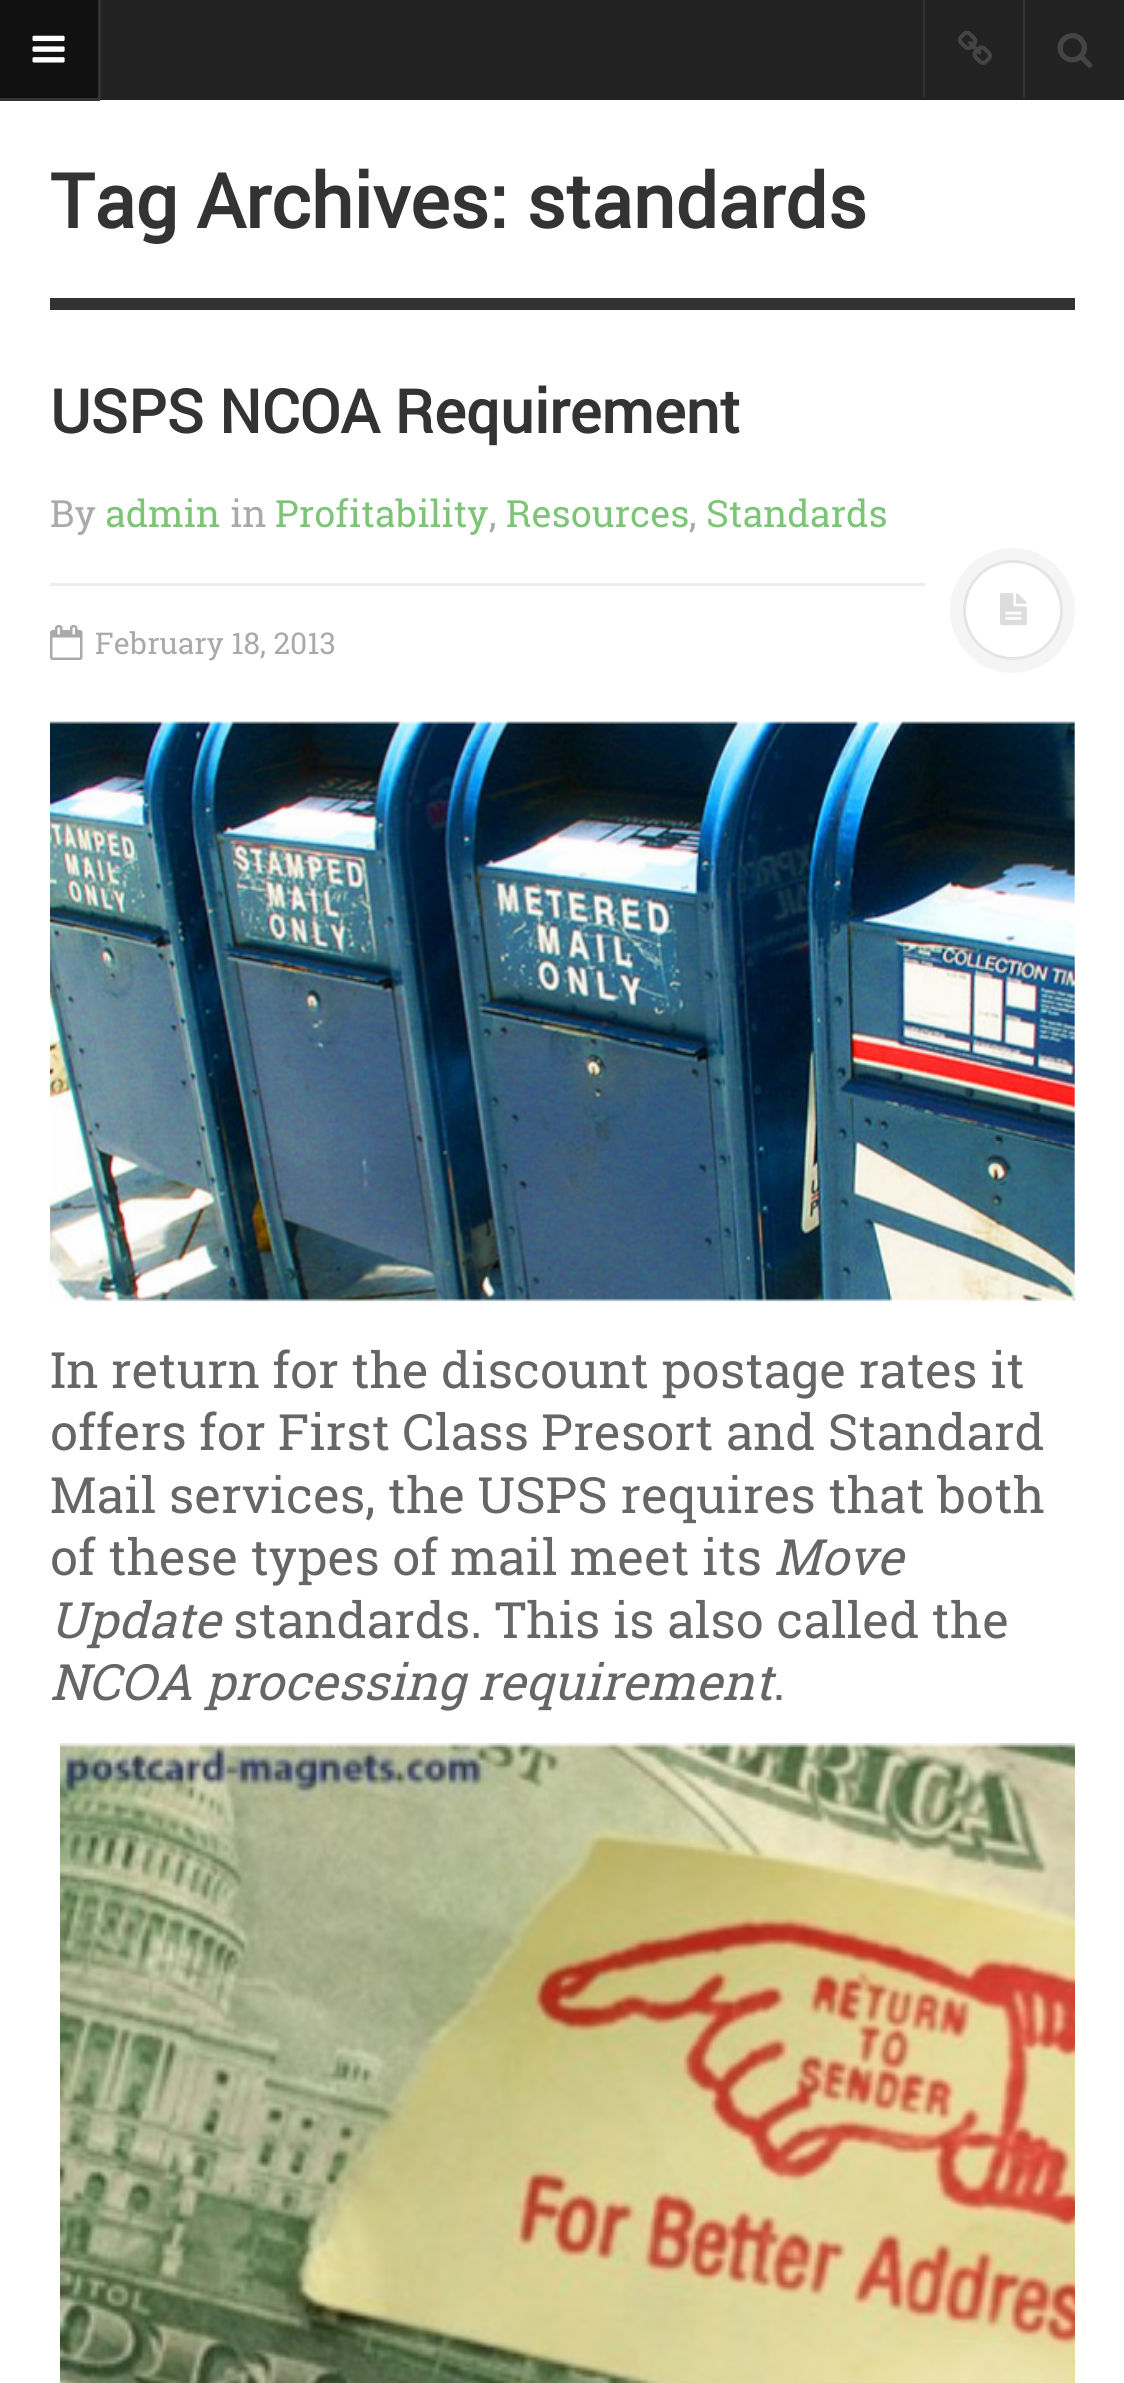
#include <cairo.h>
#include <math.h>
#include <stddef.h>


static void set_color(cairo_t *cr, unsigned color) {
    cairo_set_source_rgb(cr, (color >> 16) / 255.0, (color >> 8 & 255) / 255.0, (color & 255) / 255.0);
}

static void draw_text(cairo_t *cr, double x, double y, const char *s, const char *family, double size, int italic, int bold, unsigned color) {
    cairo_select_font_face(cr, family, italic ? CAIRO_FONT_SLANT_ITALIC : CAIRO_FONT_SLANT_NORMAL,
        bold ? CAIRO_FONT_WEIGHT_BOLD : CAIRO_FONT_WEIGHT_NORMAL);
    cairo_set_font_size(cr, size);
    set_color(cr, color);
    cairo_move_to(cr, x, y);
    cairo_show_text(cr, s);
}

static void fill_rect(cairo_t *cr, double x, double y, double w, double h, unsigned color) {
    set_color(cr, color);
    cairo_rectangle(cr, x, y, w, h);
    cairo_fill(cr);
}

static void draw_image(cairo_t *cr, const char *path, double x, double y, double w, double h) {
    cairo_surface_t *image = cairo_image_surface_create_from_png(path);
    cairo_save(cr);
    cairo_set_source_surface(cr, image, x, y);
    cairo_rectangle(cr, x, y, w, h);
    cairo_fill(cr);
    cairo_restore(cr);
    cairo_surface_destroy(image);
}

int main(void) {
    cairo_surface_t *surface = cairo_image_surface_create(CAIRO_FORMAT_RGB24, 1124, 2383);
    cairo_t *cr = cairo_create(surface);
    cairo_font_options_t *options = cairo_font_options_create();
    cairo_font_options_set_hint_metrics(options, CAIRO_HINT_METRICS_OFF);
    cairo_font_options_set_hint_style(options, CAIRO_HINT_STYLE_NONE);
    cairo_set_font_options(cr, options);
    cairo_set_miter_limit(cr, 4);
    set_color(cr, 0xFFFFFF);
    cairo_paint(cr);
    fill_rect(cr, 100, 0, 1024, 100, 0x222222);
    fill_rect(cr, 0, 98, 100, 3, 0x333333);
    fill_rect(cr, 0, 0, 98, 98, 0x111111);
    fill_rect(cr, 98, 0, 3, 98, 0x333333);
    draw_image(cr, "assets/img1.png", 32, 35, 33, 28);
    fill_rect(cr, 923, 0, 2, 98, 0x333333);
    draw_image(cr, "assets/img2.png", 957, 30, 35, 35);
    fill_rect(cr, 1023, 0, 2, 98, 0x333333);
    draw_image(cr, "assets/img3.png", 1057, 33, 36, 35);
    fill_rect(cr, 50, 298, 1025, 12, 0x333333);
    draw_text(cr, 50, 228, "Tag Archives: standards", "Roboto", 75, 0, 1, 0x333333);
    draw_text(cr, 50, 433, "USPS NCOA Requirement", "Roboto", 60, 0, 1, 0x333333);
    draw_text(cr, 50, 527, "By", "Roboto Slab", 37.5, 0, 0, 0xAAAAAA);
    draw_text(cr, 105, 527, "admin", "Roboto Slab", 37.5, 0, 0, 0x7CC576);
    draw_text(cr, 230, 527, "in", "Roboto Slab", 37.5, 0, 0, 0xAAAAAA);
    draw_text(cr, 275, 527, "Profitability", "Roboto Slab", 37.5, 0, 0, 0x7CC576);
    draw_text(cr, 489, 527, ",", "Roboto Slab", 37.5, 0, 0, 0xAAAAAA);
    draw_text(cr, 506, 527, "Resources", "Roboto Slab", 37.5, 0, 0, 0x7CC576);
    draw_text(cr, 689, 527, ",", "Roboto Slab", 37.5, 0, 0, 0xAAAAAA);
    draw_text(cr, 706, 527, "Standards", "Roboto Slab", 37.5, 0, 0, 0x7CC576);
    fill_rect(cr, 50, 583, 875, 3, 0xECECEC);
    set_color(cr, 0xF5F5F5);
    cairo_new_path(cr);
    cairo_arc(cr, 1012.5, 610.5, 62.5, 0, 2 * M_PI);
    cairo_fill(cr);
    set_color(cr, 0xFFFFFF);
    cairo_arc(cr, 1013, 610, 48.5, 0, 2 * M_PI);
    cairo_fill_preserve(cr);
    set_color(cr, 0xE5E5E5);
    cairo_set_line_width(cr, 3);
    cairo_stroke(cr);
    draw_image(cr, "assets/img4.png", 1000, 593, 27, 33);
    draw_image(cr, "assets/img5.png", 50, 625, 33, 35);
    draw_text(cr, 95, 654, "February 18, 2013", "Roboto Slab", 30, 0, 0, 0xAAAAAA);
    draw_image(cr, "assets/img6.png", 50, 721, 1025, 581);
    draw_text(cr, 50, 1388, "In return for the discount postage rates it", "Roboto Slab", 50, 0, 0, 0x666666);
    draw_text(cr, 50, 1450, "offers for First Class Presort and Standard", "Roboto Slab", 50, 0, 0, 0x666666);
    draw_text(cr, 50, 1513, "Mail services, the USPS requires that both", "Roboto Slab", 50, 0, 0, 0x666666);
    draw_text(cr, 50, 1575, "of these types of mail meet its", "Roboto Slab", 50, 0, 0, 0x666666);
    draw_text(cr, 774, 1575, "Move", "Roboto Slab", 50, 1, 0, 0x666666);
    draw_text(cr, 50, 1638, "Update", "Roboto Slab", 50, 1, 0, 0x666666);
    draw_text(cr, 233, 1638, "standards. This is also called the", "Roboto Slab", 50, 0, 0, 0x666666);
    draw_text(cr, 50, 1700, "NCOA processing requirement", "Roboto Slab", 50, 1, 0, 0x666666);
    draw_text(cr, 773, 1700, ".", "Roboto Slab", 50, 0, 0, 0x666666);
    draw_image(cr, "assets/img7.png", 60, 1743, 1015, 640);
    cairo_surface_write_to_png(surface, "output.png");
    cairo_font_options_destroy(options);
    cairo_destroy(cr);
    cairo_surface_destroy(surface);
    return 0;
}
